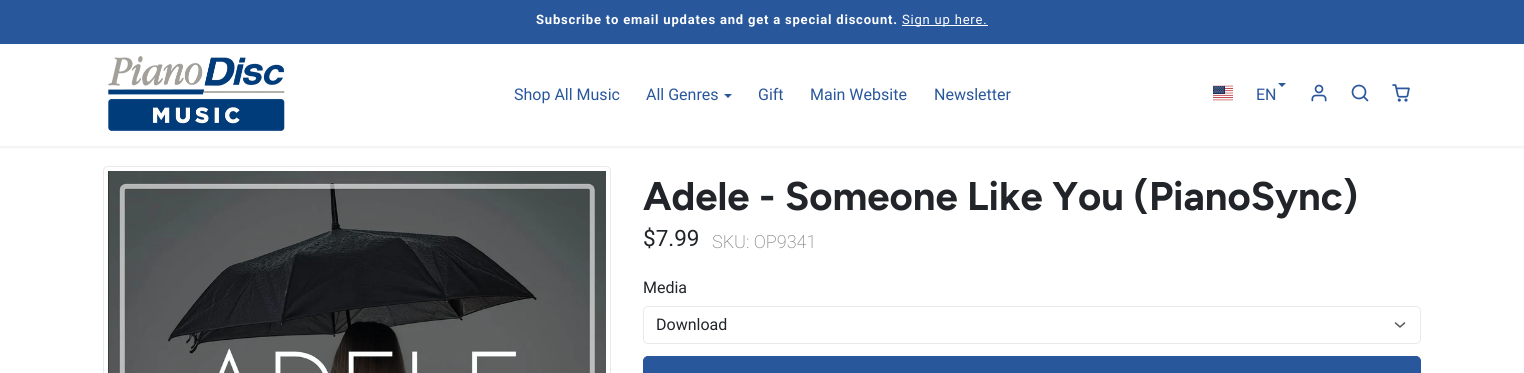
#include <cairo.h>
#include <math.h>
#include <stddef.h>


static void set_color(cairo_t *cr, unsigned color) {
    cairo_set_source_rgb(cr, (color >> 16) / 255.0, (color >> 8 & 255) / 255.0, (color & 255) / 255.0);
}

static void draw_text(cairo_t *cr, double x, double y, const char *s, const char *family, double size, int italic, int bold, unsigned color) {
    cairo_select_font_face(cr, family, italic ? CAIRO_FONT_SLANT_ITALIC : CAIRO_FONT_SLANT_NORMAL,
        bold ? CAIRO_FONT_WEIGHT_BOLD : CAIRO_FONT_WEIGHT_NORMAL);
    cairo_set_font_size(cr, size);
    set_color(cr, color);
    cairo_move_to(cr, x, y);
    cairo_show_text(cr, s);
}

static void draw_spaced(cairo_t *cr, double x, double y, const char *s, double letter, double word) {
    cairo_move_to(cr, x, y);
    while (*s) {
        char ch[5] = {0};
        int n = 0;
        do ch[n++] = *s++; while ((*s & 0xC0) == 0x80);
        cairo_show_text(cr, ch);
        cairo_rel_move_to(cr, letter + word * (*ch == ' '), 0);
    }
}

static void fill_rect(cairo_t *cr, double x, double y, double w, double h, unsigned color) {
    set_color(cr, color);
    cairo_rectangle(cr, x, y, w, h);
    cairo_fill(cr);
}

static void rounded_rect(cairo_t *cr, double x, double y, double w, double h, double r) {
    cairo_new_sub_path(cr);
    cairo_arc(cr, x + w - r, y + h - r, r, 0, M_PI / 2);
    cairo_arc(cr, x + r, y + h - r, r, M_PI / 2, M_PI);
    cairo_arc(cr, x + r, y + r, r, M_PI, 1.5 * M_PI);
    cairo_arc(cr, x + w - r, y + r, r, 1.5 * M_PI, 2 * M_PI);
    cairo_close_path(cr);
}

static void draw_shadow(cairo_t *cr, double x, double y, double w, double h, double r, double blur, double alpha) {
    cairo_push_group_with_content(cr, CAIRO_CONTENT_ALPHA);
    cairo_set_operator(cr, CAIRO_OPERATOR_SOURCE);
    for (int i = 15; i >= -15 && fmin(w, h) + blur * i / 3 > 0; i -= 2) {
        double e = blur * i / 6;
        cairo_set_source_rgba(cr, 0, 0, 0, alpha * erfc((i - 1) / 8.5) / 2);
        rounded_rect(cr, x - e, y - e, w + 2 * e, h + 2 * e, fmax(0, fmin(r + e + blur * .6, fmin(w, h) / 2 + e)));
        cairo_fill(cr);
    }
    cairo_pattern_t *soft = cairo_pop_group(cr);
    cairo_mask(cr, soft);
    cairo_pattern_destroy(soft);
}

static void draw_image(cairo_t *cr, const char *path, double x, double y, double w, double h) {
    cairo_surface_t *image = cairo_image_surface_create_from_png(path);
    cairo_save(cr);
    cairo_set_source_surface(cr, image, x, y);
    cairo_rectangle(cr, x, y, w, h);
    cairo_fill(cr);
    cairo_restore(cr);
    cairo_surface_destroy(image);
}

int main(void) {
    cairo_surface_t *surface = cairo_image_surface_create(CAIRO_FORMAT_RGB24, 1524, 373);
    cairo_t *cr = cairo_create(surface);
    cairo_font_options_t *options = cairo_font_options_create();
    cairo_font_options_set_hint_metrics(options, CAIRO_HINT_METRICS_OFF);
    cairo_font_options_set_hint_style(options, CAIRO_HINT_STYLE_NONE);
    cairo_set_font_options(cr, options);
    cairo_set_miter_limit(cr, 4);
    set_color(cr, 0xFFFFFF);
    cairo_paint(cr);
    cairo_save(cr);
    cairo_rectangle(cr, 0, 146, 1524, 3);
    cairo_clip(cr);
    set_color(cr, 0x212529);
    draw_shadow(cr, 0, 46, 1524, 102, 0, 2, 0.07);
    cairo_restore(cr);
    fill_rect(cr, 0, 0, 1524, 44, 0x29579C);
    cairo_select_font_face(cr, "Roboto", CAIRO_FONT_SLANT_NORMAL, CAIRO_FONT_WEIGHT_BOLD);
    cairo_set_font_size(cr, 13);
    set_color(cr, 0xFFFFFF);
    draw_spaced(cr, 536, 24, "Subscribe to email updates and get a special discount.", 0.8, 0);
    fill_rect(cr, 902, 25, 86, 1, 0xFFFFFF);
    cairo_select_font_face(cr, "Roboto", CAIRO_FONT_SLANT_NORMAL, CAIRO_FONT_WEIGHT_NORMAL);
    draw_spaced(cr, 902, 24, "Sign up here.", 0.8, 0);
    draw_image(cr, "assets/img1.png", 108, 56, 177, 75);
    draw_text(cr, 514, 100, "Shop All Music", "Roboto", 16, 0, 0, 0x29579C);
    draw_text(cr, 646, 100, "All Genres", "Roboto", 16, 0, 0, 0x29579C);
    cairo_new_path(cr);
    cairo_move_to(cr, 724, 94);
    cairo_line_to(cr, 732, 94);
    cairo_line_to(cr, 728, 98);
    cairo_close_path(cr);
    cairo_fill(cr);
    draw_text(cr, 758, 100, "Gift", "Roboto", 16, 0, 0, 0x29579C);
    draw_text(cr, 810, 100, "Main Website", "Roboto", 16, 0, 0, 0x29579C);
    draw_text(cr, 934, 100, "Newsletter", "Roboto", 16, 0, 0, 0x29579C);
    draw_image(cr, "assets/img2.png", 1213, 85, 20, 16);
    cairo_new_path(cr);
    cairo_move_to(cr, 1278, 83);
    cairo_line_to(cr, 1286, 83);
    cairo_line_to(cr, 1282, 87);
    cairo_close_path(cr);
    cairo_fill(cr);
    draw_text(cr, 1256, 100, "EN", "Roboto", 16, 0, 0, 0x29579C);
    draw_image(cr, "assets/img3.png", 1311, 84, 16, 18);
    cairo_arc(cr, 1359, 92, 6.5, 0, 2 * M_PI);
    cairo_set_line_width(cr, 1.7);
    cairo_stroke(cr);
    cairo_new_path(cr);
    cairo_move_to(cr, 1367.5, 100.5);
    cairo_line_to(cr, 1364, 97);
    cairo_set_line_cap(cr, CAIRO_LINE_CAP_ROUND);
    cairo_set_line_join(cr, CAIRO_LINE_JOIN_ROUND);
    cairo_stroke(cr);
    draw_image(cr, "assets/img4.png", 1392, 84, 18, 18);
    rounded_rect(cr, 103.5, 166.5, 507, 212, 4.5);
    set_color(cr, 0xE9E9EA);
    cairo_set_line_width(cr, 1);
    cairo_set_line_cap(cr, CAIRO_LINE_CAP_BUTT);
    cairo_set_line_join(cr, CAIRO_LINE_JOIN_MITER);
    cairo_stroke(cr);
    draw_image(cr, "assets/img5.png", 108, 171, 498, 202);
    draw_text(cr, 643, 210, "Adele - Someone Like You (PianoSync)", "Figtree", 40, 0, 1, 0x212529);
    draw_text(cr, 643, 246, "$7.99", "Roboto", 22.5, 0, 0, 0x212529);
    draw_text(cr, 712, 248, "SKU: OP9341", "Roboto ExtraLight", 18, 0, 0, 0x888888);
    draw_text(cr, 643, 293, "Media", "Roboto", 16, 0, 0, 0x212529);
    cairo_new_path(cr);
    cairo_move_to(cr, 1395.5, 323);
    cairo_line_to(cr, 1400, 327);
    cairo_line_to(cr, 1404.5, 323);
    set_color(cr, 0x555555);
    cairo_set_line_width(cr, 1.5);
    cairo_set_line_cap(cr, CAIRO_LINE_CAP_ROUND);
    cairo_set_line_join(cr, CAIRO_LINE_JOIN_ROUND);
    cairo_stroke(cr);
    rounded_rect(cr, 643.5, 306.5, 777, 37, 4.5);
    set_color(cr, 0xE9E9EA);
    cairo_set_line_width(cr, 1);
    cairo_set_line_cap(cr, CAIRO_LINE_CAP_BUTT);
    cairo_set_line_join(cr, CAIRO_LINE_JOIN_MITER);
    cairo_stroke(cr);
    draw_text(cr, 656, 330, "Download", "Roboto", 16, 0, 0, 0x212529);
    set_color(cr, 0x29579C);
    rounded_rect(cr, 643.5, 356.5, 777, 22, 4.5);
    cairo_fill_preserve(cr);
    cairo_stroke(cr);
    cairo_surface_write_to_png(surface, "output.png");
    cairo_font_options_destroy(options);
    cairo_destroy(cr);
    cairo_surface_destroy(surface);
    return 0;
}
